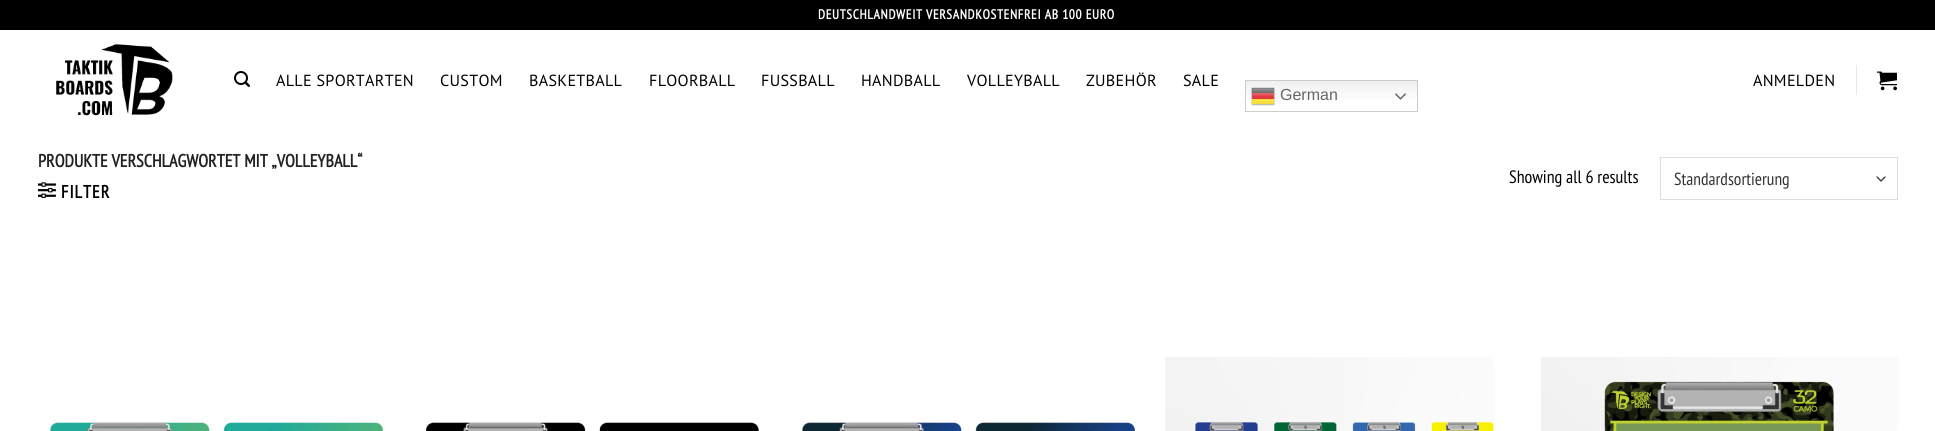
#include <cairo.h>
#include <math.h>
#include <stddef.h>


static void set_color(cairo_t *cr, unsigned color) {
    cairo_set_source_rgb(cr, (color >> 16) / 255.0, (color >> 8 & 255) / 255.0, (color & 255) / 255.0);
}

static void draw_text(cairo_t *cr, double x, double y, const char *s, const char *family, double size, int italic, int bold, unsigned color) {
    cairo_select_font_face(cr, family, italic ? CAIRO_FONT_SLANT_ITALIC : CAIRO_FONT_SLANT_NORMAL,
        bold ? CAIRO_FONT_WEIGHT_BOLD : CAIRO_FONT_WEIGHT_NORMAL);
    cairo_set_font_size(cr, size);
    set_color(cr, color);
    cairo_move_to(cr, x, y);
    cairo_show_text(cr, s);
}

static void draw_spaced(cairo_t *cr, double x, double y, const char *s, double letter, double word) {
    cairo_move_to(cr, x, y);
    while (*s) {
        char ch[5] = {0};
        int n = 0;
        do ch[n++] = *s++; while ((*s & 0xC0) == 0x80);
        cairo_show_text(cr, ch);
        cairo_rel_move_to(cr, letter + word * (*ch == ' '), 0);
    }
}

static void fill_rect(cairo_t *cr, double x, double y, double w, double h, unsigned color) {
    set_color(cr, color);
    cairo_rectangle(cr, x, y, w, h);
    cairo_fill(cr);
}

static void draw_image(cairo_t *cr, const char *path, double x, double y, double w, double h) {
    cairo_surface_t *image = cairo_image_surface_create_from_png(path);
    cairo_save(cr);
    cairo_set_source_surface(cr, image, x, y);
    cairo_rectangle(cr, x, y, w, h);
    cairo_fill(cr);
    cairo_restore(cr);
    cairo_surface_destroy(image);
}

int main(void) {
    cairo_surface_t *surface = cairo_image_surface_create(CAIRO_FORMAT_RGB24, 1935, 431);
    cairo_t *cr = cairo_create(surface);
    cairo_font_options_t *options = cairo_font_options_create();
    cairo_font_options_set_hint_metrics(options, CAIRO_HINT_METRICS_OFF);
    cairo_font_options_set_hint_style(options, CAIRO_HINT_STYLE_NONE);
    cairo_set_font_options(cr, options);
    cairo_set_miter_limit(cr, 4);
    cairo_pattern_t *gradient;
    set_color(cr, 0xFFFFFF);
    cairo_paint(cr);
    fill_rect(cr, 0, 0, 1935, 30, 0x000000);
    cairo_select_font_face(cr, "PT Sans Narrow", CAIRO_FONT_SLANT_NORMAL, CAIRO_FONT_WEIGHT_BOLD);
    cairo_set_font_size(cr, 13.4);
    set_color(cr, 0xFFFFFF);
    draw_spaced(cr, 818, 19, "DEUTSCHLANDWEIT VERSANDKOSTENFREI AB 100 EURO", 0.65, 0);
    draw_image(cr, "assets/img1.png", 56, 44, 117, 72);
    draw_image(cr, "assets/img2.png", 234, 71, 16, 16);
    cairo_select_font_face(cr, "PT Sans", CAIRO_FONT_SLANT_NORMAL, CAIRO_FONT_WEIGHT_NORMAL);
    cairo_set_font_size(cr, 16.1);
    set_color(cr, 0x000000);
    draw_spaced(cr, 276, 86, "ALLE SPORTARTEN", 0.3, 0);
    draw_spaced(cr, 440, 86, "CUSTOM", 0.3, 0);
    draw_spaced(cr, 529, 86, "BASKETBALL", 0.3, 0);
    draw_spaced(cr, 649, 86, "FLOORBALL", 0.3, 0);
    draw_spaced(cr, 761, 86, "FUSSBALL", 0.3, 0);
    draw_spaced(cr, 861, 86, "HANDBALL", 0.3, 0);
    draw_spaced(cr, 967, 86, "VOLLEYBALL", 0.3, 0);
    draw_spaced(cr, 1086, 86, "ZUBEHÖR", 0.3, 0);
    draw_spaced(cr, 1183, 86, "SALE", 0.3, 0);
    gradient = cairo_pattern_create_linear(1332, 80, 1332, 112);
    cairo_pattern_add_color_stop_rgba(gradient, 0, 0.937, 0.937, 0.937, 1);
    cairo_pattern_add_color_stop_rgba(gradient, 0.7, 1, 1, 1, 1);
    cairo_set_source(cr, gradient);
    cairo_pattern_destroy(gradient);
    cairo_rectangle(cr, 1246, 81, 171, 18);
    cairo_fill(cr);
    cairo_rectangle(cr, 1245.5, 80.5, 172, 31);
    set_color(cr, 0xCCCCCC);
    cairo_set_line_width(cr, 1);
    cairo_stroke(cr);
    draw_image(cr, "assets/img3.png", 1251, 87, 24, 19);
    draw_text(cr, 1280, 100, "German", "Liberation Sans", 16, 0, 0, 0x666666);
    draw_image(cr, "assets/img4.png", 1395, 93, 11, 7);
    cairo_select_font_face(cr, "PT Sans", CAIRO_FONT_SLANT_NORMAL, CAIRO_FONT_WEIGHT_NORMAL);
    cairo_set_font_size(cr, 16.1);
    set_color(cr, 0x000000);
    draw_spaced(cr, 1753, 86, "ANMELDEN", 0.3, 0);
    fill_rect(cr, 1856, 65, 1, 30, 0xE6E6E6);
    draw_image(cr, "assets/img5.png", 1877, 71, 20, 20);
    draw_text(cr, 38, 167, "PRODUKTE VERSCHLAGWORTET MIT „VOLLEYBALL“", "PT Sans Narrow", 17.9, 0, 1, 0x222222);
    draw_image(cr, "assets/img6.png", 38, 182, 18, 16);
    set_color(cr, 0x000000);
    draw_spaced(cr, 61, 198, "FILTER", 1, 0);
    draw_text(cr, 1509, 183, "Showing all 6 results", "PT Sans Narrow", 17.9, 0, 0, 0x000000);
    cairo_new_path(cr);
    cairo_move_to(cr, 1877, 177);
    cairo_line_to(cr, 1881, 181);
    cairo_line_to(cr, 1885, 177);
    set_color(cr, 0x333333);
    cairo_set_line_width(cr, 1.3);
    cairo_set_line_cap(cr, CAIRO_LINE_CAP_ROUND);
    cairo_set_line_join(cr, CAIRO_LINE_JOIN_ROUND);
    cairo_stroke(cr);
    cairo_rectangle(cr, 1660.5, 157.5, 237, 42);
    set_color(cr, 0xDDDDDD);
    cairo_set_line_width(cr, 1);
    cairo_set_line_cap(cr, CAIRO_LINE_CAP_BUTT);
    cairo_set_line_join(cr, CAIRO_LINE_JOIN_MITER);
    cairo_stroke(cr);
    draw_text(cr, 1674, 185, "Standardsortierung", "PT Sans Narrow", 17.5, 0, 0, 0x333333);
    draw_image(cr, "assets/img7.png", 47, 419, 337, 12);
    draw_image(cr, "assets/img8.png", 424, 420, 336, 11);
    draw_image(cr, "assets/img9.png", 799, 419, 337, 12);
    draw_image(cr, "assets/img10.png", 1165, 357, 329, 74);
    draw_image(cr, "assets/img11.png", 1541, 357, 357, 74);
    cairo_surface_write_to_png(surface, "output.png");
    cairo_font_options_destroy(options);
    cairo_destroy(cr);
    cairo_surface_destroy(surface);
    return 0;
}
